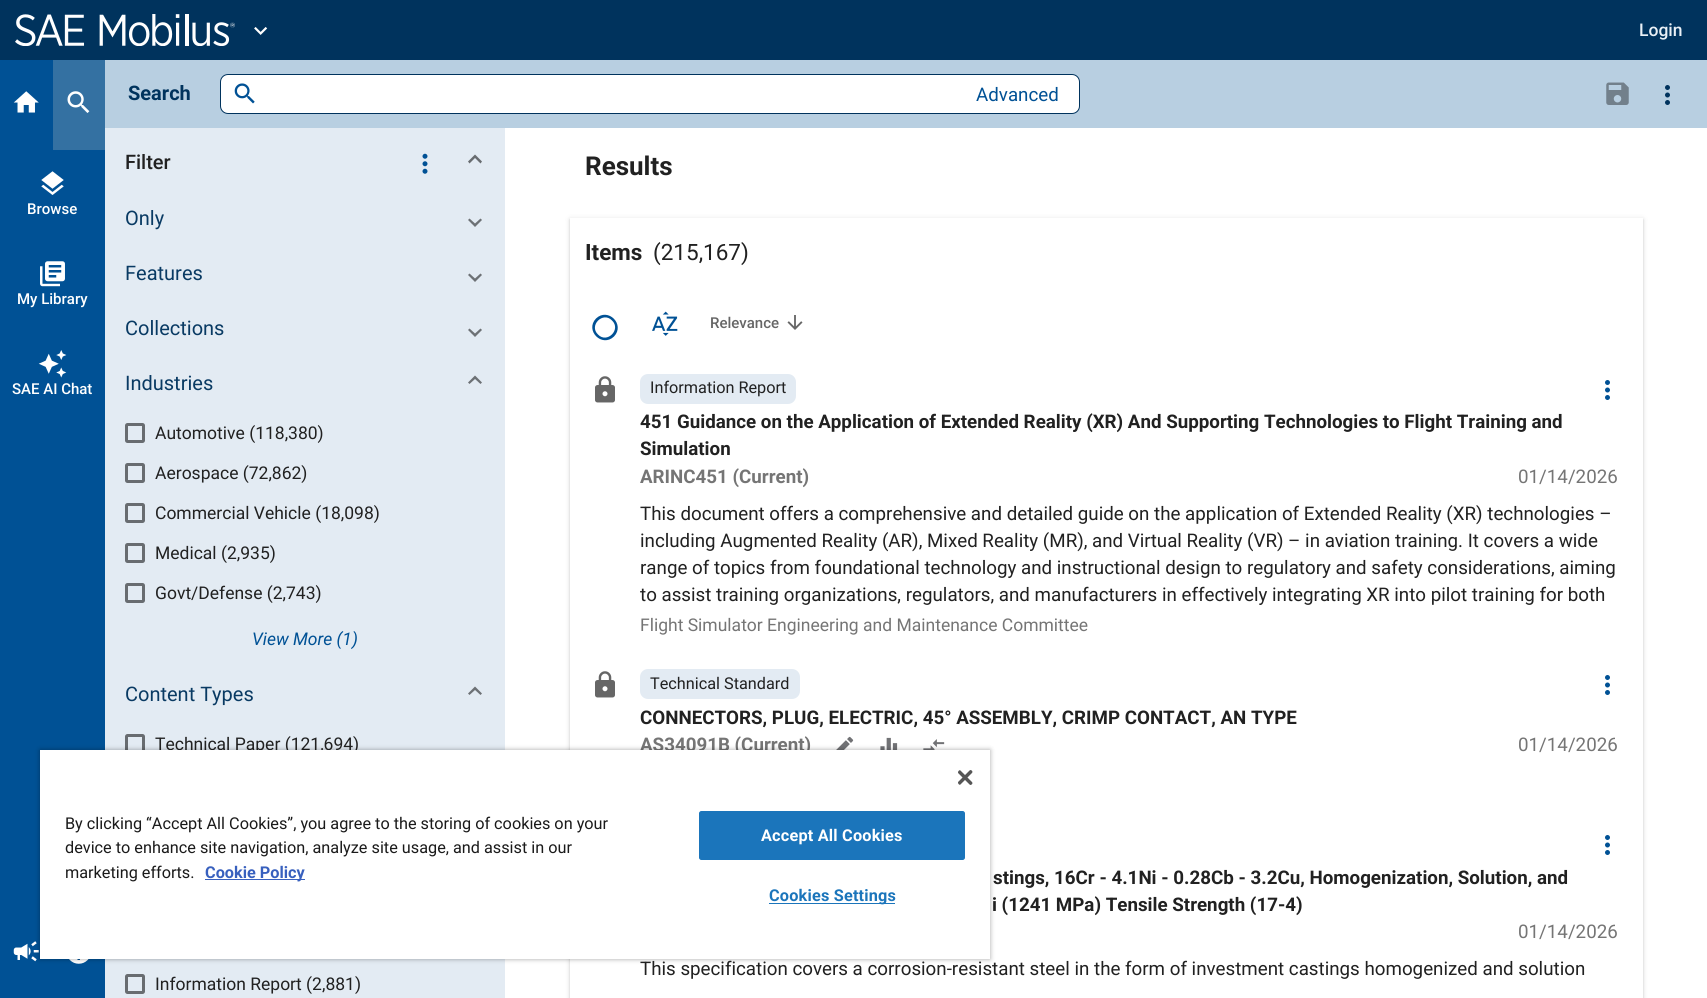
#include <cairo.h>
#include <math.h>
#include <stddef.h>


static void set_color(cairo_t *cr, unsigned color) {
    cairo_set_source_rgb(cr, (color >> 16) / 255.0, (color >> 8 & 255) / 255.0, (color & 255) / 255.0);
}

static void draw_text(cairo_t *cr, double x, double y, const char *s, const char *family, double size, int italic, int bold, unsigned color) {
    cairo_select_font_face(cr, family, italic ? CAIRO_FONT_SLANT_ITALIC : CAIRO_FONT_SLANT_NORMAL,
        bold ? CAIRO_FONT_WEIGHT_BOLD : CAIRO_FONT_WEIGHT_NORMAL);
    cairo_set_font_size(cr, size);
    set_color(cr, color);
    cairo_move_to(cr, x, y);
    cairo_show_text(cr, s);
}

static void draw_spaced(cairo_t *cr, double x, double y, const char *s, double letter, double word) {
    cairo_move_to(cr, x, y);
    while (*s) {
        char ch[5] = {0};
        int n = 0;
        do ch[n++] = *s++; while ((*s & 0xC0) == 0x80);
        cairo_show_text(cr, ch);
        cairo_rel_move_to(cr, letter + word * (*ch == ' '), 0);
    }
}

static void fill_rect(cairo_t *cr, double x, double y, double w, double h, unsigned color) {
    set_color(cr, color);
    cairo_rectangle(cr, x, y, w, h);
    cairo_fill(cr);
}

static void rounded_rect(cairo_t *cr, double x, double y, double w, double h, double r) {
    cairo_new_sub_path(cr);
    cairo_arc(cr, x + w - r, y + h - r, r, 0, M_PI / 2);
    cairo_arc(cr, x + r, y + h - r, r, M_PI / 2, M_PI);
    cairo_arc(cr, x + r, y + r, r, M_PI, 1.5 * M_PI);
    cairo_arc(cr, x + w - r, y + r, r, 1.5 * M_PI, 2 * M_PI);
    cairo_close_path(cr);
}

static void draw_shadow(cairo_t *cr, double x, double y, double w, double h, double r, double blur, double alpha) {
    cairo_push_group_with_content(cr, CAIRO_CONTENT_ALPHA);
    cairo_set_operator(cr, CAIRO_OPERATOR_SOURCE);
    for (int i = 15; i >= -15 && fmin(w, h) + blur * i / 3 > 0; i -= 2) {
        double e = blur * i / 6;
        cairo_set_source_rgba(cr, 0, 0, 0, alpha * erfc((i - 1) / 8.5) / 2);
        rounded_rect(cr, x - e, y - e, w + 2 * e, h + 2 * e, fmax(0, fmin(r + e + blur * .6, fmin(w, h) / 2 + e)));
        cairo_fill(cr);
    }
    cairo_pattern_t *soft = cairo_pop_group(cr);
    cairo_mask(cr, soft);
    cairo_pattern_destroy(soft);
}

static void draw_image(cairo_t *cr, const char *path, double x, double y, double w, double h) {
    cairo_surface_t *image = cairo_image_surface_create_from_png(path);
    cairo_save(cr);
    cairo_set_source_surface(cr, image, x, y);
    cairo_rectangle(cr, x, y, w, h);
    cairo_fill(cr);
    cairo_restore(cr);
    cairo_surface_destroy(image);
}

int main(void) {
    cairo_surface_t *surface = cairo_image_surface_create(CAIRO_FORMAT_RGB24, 1707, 998);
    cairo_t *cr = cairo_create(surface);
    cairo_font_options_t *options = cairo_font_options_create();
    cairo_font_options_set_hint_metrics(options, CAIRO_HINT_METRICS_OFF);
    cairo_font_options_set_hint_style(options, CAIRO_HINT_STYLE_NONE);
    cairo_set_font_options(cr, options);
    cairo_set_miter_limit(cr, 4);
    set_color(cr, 0xFFFFFF);
    cairo_paint(cr);
    fill_rect(cr, 0, 0, 1707, 60, 0x00335D);
    draw_image(cr, "assets/img1.png", 15, 14, 220, 32);
    draw_image(cr, "assets/img2.png", 254, 27, 14, 8);
    draw_text(cr, 1639, 36, "Login", "Roboto Medium", 17.5, 0, 0, 0xE9F0F6);
    fill_rect(cr, 0, 60, 105, 938, 0x005195);
    draw_image(cr, "assets/img3.png", 13, 91, 26, 22);
    fill_rect(cr, 53, 60, 52, 90, 0x3471A2);
    draw_image(cr, "assets/img4.png", 67, 91, 23, 22);
    draw_image(cr, "assets/img5.png", 41, 171, 23, 24);
    draw_text(cr, 27, 214, "Browse", "Roboto Medium", 15, 0, 0, 0xFFFFFF);
    draw_image(cr, "assets/img6.png", 40, 261, 25, 26);
    draw_text(cr, 17, 304, "My Library", "Roboto Medium", 15, 0, 0, 0xFFFFFF);
    draw_image(cr, "assets/img7.png", 38, 350, 29, 28);
    draw_text(cr, 12, 394, "SAE AI Chat", "Roboto Medium", 15, 0, 0, 0xFFFFFF);
    draw_image(cr, "assets/img8.png", 13, 941, 26, 21);
    draw_image(cr, "assets/img9.png", 69, 959, 20, 5);
    fill_rect(cr, 105, 60, 1602, 68, 0xB8CFE1);
    draw_text(cr, 128, 100, "Search", "Roboto", 20, 0, 1, 0x00335D);
    set_color(cr, 0xFFFFFF);
    rounded_rect(cr, 220.5, 74.5, 859, 39, 7.5);
    cairo_fill_preserve(cr);
    set_color(cr, 0x00335D);
    cairo_set_line_width(cr, 1);
    cairo_stroke(cr);
    draw_image(cr, "assets/img10.png", 234, 83, 21, 21);
    draw_text(cr, 976, 101, "Advanced", "Roboto", 18.75, 0, 0, 0x005195);
    draw_image(cr, "assets/img11.png", 1606, 82, 23, 23);
    draw_image(cr, "assets/img12.png", 1665, 85, 5, 20);
    fill_rect(cr, 105, 128, 400, 870, 0xE3EBF3);
    draw_text(cr, 125, 169, "Filter", "Roboto Medium", 20, 0, 0, 0x212121);
    set_color(cr, 0x686C70);
    cairo_new_path(cr);
    cairo_move_to(cr, 468, 161.5);
    cairo_line_to(cr, 475, 154.5);
    cairo_line_to(cr, 475, 158);
    cairo_line_to(cr, 469.5, 163.5);
    cairo_close_path(cr);
    cairo_move_to(cr, 475, 154.5);
    cairo_line_to(cr, 482, 161.5);
    cairo_line_to(cr, 480.5, 163.5);
    cairo_line_to(cr, 475, 158);
    cairo_close_path(cr);
    cairo_fill(cr);
    draw_image(cr, "assets/img13.png", 422, 153, 6, 21);
    draw_text(cr, 125, 225, "Only", "Roboto", 20, 0, 0, 0x093A63);
    set_color(cr, 0x6D7175);
    cairo_new_path(cr);
    cairo_move_to(cr, 482, 220);
    cairo_line_to(cr, 475, 227);
    cairo_line_to(cr, 475, 223.5);
    cairo_line_to(cr, 480.5, 218.5);
    cairo_close_path(cr);
    cairo_move_to(cr, 475, 227);
    cairo_line_to(cr, 468, 220);
    cairo_line_to(cr, 469.5, 218.5);
    cairo_line_to(cr, 475, 223.5);
    cairo_close_path(cr);
    cairo_fill(cr);
    draw_text(cr, 125, 280, "Features", "Roboto", 20, 0, 0, 0x093A63);
    set_color(cr, 0x6D7175);
    cairo_new_path(cr);
    cairo_move_to(cr, 482, 275);
    cairo_line_to(cr, 475, 282);
    cairo_line_to(cr, 475, 278.5);
    cairo_line_to(cr, 480.5, 273.5);
    cairo_close_path(cr);
    cairo_move_to(cr, 475, 282);
    cairo_line_to(cr, 468, 275);
    cairo_line_to(cr, 469.5, 273.5);
    cairo_line_to(cr, 475, 278.5);
    cairo_close_path(cr);
    cairo_fill(cr);
    draw_text(cr, 125, 335, "Collections", "Roboto", 20, 0, 0, 0x093A63);
    set_color(cr, 0x6D7175);
    cairo_new_path(cr);
    cairo_move_to(cr, 482, 330);
    cairo_line_to(cr, 475, 337);
    cairo_line_to(cr, 475, 333.5);
    cairo_line_to(cr, 480.5, 328.5);
    cairo_close_path(cr);
    cairo_move_to(cr, 475, 337);
    cairo_line_to(cr, 468, 330);
    cairo_line_to(cr, 469.5, 328.5);
    cairo_line_to(cr, 475, 333.5);
    cairo_close_path(cr);
    cairo_fill(cr);
    draw_text(cr, 125, 390, "Industries", "Roboto", 20, 0, 0, 0x093A63);
    set_color(cr, 0x6D7175);
    cairo_new_path(cr);
    cairo_move_to(cr, 468, 382.5);
    cairo_line_to(cr, 475, 375.5);
    cairo_line_to(cr, 475, 379);
    cairo_line_to(cr, 469.5, 384);
    cairo_close_path(cr);
    cairo_move_to(cr, 475, 375.5);
    cairo_line_to(cr, 482, 382.5);
    cairo_line_to(cr, 480.5, 384);
    cairo_line_to(cr, 475, 379);
    cairo_close_path(cr);
    cairo_fill(cr);
    rounded_rect(cr, 126.5, 424.5, 17, 17, 1);
    set_color(cr, 0x686C70);
    cairo_set_line_width(cr, 3);
    cairo_stroke(cr);
    draw_text(cr, 155, 439, "Automotive (118,380)", "Roboto", 17.5, 0, 0, 0x212121);
    rounded_rect(cr, 126.5, 464.5, 17, 17, 1);
    set_color(cr, 0x686C70);
    cairo_stroke(cr);
    draw_text(cr, 155, 479, "Aerospace (72,862)", "Roboto", 17.5, 0, 0, 0x212121);
    rounded_rect(cr, 126.5, 504.5, 17, 17, 1);
    set_color(cr, 0x686C70);
    cairo_stroke(cr);
    draw_text(cr, 155, 519, "Commercial Vehicle (18,098)", "Roboto", 17.5, 0, 0, 0x212121);
    rounded_rect(cr, 126.5, 544.5, 17, 17, 1);
    set_color(cr, 0x686C70);
    cairo_stroke(cr);
    draw_text(cr, 155, 559, "Medical (2,935)", "Roboto", 17.5, 0, 0, 0x212121);
    rounded_rect(cr, 126.5, 584.5, 17, 17, 1);
    set_color(cr, 0x686C70);
    cairo_stroke(cr);
    draw_text(cr, 155, 599, "Govt/Defense (2,743)", "Roboto", 17.5, 0, 0, 0x212121);
    draw_text(cr, 252, 645, "View More (1)", "Roboto", 17.5, 1, 0, 0x005195);
    draw_text(cr, 125, 701, "Content Types", "Roboto", 20, 0, 0, 0x093A63);
    set_color(cr, 0x6D7175);
    cairo_new_path(cr);
    cairo_move_to(cr, 468, 693.5);
    cairo_line_to(cr, 475, 686.5);
    cairo_line_to(cr, 475, 690);
    cairo_line_to(cr, 469.5, 695);
    cairo_close_path(cr);
    cairo_move_to(cr, 475, 686.5);
    cairo_line_to(cr, 482, 693.5);
    cairo_line_to(cr, 480.5, 695);
    cairo_line_to(cr, 475, 690);
    cairo_close_path(cr);
    cairo_fill(cr);
    rounded_rect(cr, 126.5, 735.5, 17, 17, 1);
    set_color(cr, 0x686C70);
    cairo_stroke(cr);
    draw_text(cr, 155, 750, "Technical Paper (121,694)", "Roboto", 17.5, 0, 0, 0x212121);
    rounded_rect(cr, 126.5, 975.5, 17, 17, 1);
    set_color(cr, 0x686C70);
    cairo_stroke(cr);
    draw_text(cr, 155, 990, "Information Report (2,881)", "Roboto", 17.5, 0, 0, 0x212121);
    draw_text(cr, 585, 175, "Results", "Roboto", 26, 0, 1, 0x212121);
    set_color(cr, 0x000000);
    draw_shadow(cr, 570, 219, 1073, 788, 0, 3, 0.12);
    draw_shadow(cr, 570, 220, 1073, 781, 0, 1, 0.14);
    fill_rect(cr, 570, 218, 1073, 780, 0xFFFFFF);
    draw_text(cr, 585, 260, "Items", "Roboto", 22.5, 0, 1, 0x212121);
    draw_text(cr, 653, 260, "(215,167)", "Roboto", 22.5, 0, 0, 0x212121);
    set_color(cr, 0x005195);
    cairo_new_path(cr);
    cairo_move_to(cr, 598, 334.5);
    cairo_curve_to(cr, 607, 344, 621.5, 329.5, 612, 320.5);
    cairo_curve_to(cr, 603, 311, 588.5, 325.5, 598, 334.5);
    cairo_close_path(cr);
    cairo_move_to(cr, 596, 318.5);
    cairo_curve_to(cr, 608, 307, 625.5, 324.5, 614, 336.5);
    cairo_curve_to(cr, 602, 348, 584.5, 330.5, 596, 318.5);
    cairo_close_path(cr);
    cairo_fill(cr);
    draw_image(cr, "assets/img14.png", 652, 311, 26, 25);
    draw_text(cr, 710, 328, "Relevance", "Roboto Medium", 15, 0, 0, 0x666666);
    draw_image(cr, "assets/img15.png", 787, 315, 16, 15);
    set_color(cr, 0xE3EBF3);
    rounded_rect(cr, 640, 374, 156, 30, 8);
    cairo_fill(cr);
    draw_text(cr, 650, 393, "Information Report", "Roboto", 16.25, 0, 0, 0x212121);
    draw_image(cr, "assets/img16.png", 1605, 380, 5, 20);
    draw_image(cr, "assets/img17.png", 595, 376, 20, 27);
    draw_text(cr, 640, 428, "451 Guidance on the Application of Extended Reality (XR) And Supporting Technologies to Flight Training and", "Roboto", 18.75, 0, 1, 0x212121);
    draw_text(cr, 640, 455, "Simulation", "Roboto", 18.75, 0, 1, 0x212121);
    draw_text(cr, 640, 483, "ARINC451 (Current)", "Roboto", 18.75, 0, 1, 0x757575);
    draw_text(cr, 1518, 483, "01/14/2026", "Roboto", 18.75, 0, 0, 0x757575);
    draw_text(cr, 640, 520, "This document offers a comprehensive and detailed guide on the application of Extended Reality (XR) technologies –", "Roboto", 18.75, 0, 0, 0x212121);
    draw_text(cr, 640, 547, "including Augmented Reality (AR), Mixed Reality (MR), and Virtual Reality (VR) – in aviation training. It covers a wide", "Roboto", 18.75, 0, 0, 0x212121);
    draw_text(cr, 640, 574, "range of topics from foundational technology and instructional design to regulatory and safety considerations, aiming", "Roboto", 18.75, 0, 0, 0x212121);
    draw_text(cr, 640, 601, "to assist training organizations, regulators, and manufacturers in effectively integrating XR into pilot training for both", "Roboto", 18.75, 0, 0, 0x212121);
    draw_text(cr, 640, 631, "Flight Simulator Engineering and Maintenance Committee", "Roboto", 17.5, 0, 0, 0x757575);
    set_color(cr, 0xE3EBF3);
    rounded_rect(cr, 640, 669, 160, 30, 8);
    cairo_fill(cr);
    draw_text(cr, 650, 689, "Technical Standard", "Roboto", 16.25, 0, 0, 0x212121);
    draw_image(cr, "assets/img16.png", 1605, 675, 5, 20);
    draw_image(cr, "assets/img17.png", 595, 671, 20, 27);
    draw_text(cr, 640, 724, "CONNECTORS, PLUG, ELECTRIC, 45° ASSEMBLY, CRIMP CONTACT, AN TYPE", "Roboto", 18.75, 0, 1, 0x212121);
    draw_text(cr, 640, 751, "AS34091B (Current)", "Roboto", 18.75, 0, 1, 0x757575);
    draw_image(cr, "assets/img18.png", 836, 736, 18, 14);
    draw_image(cr, "assets/img19.png", 880, 737, 18, 13);
    draw_image(cr, "assets/img20.png", 923, 739, 22, 11);
    draw_text(cr, 1518, 751, "01/14/2026", "Roboto", 18.75, 0, 0, 0x757575);
    draw_image(cr, "assets/img16.png", 1605, 835, 5, 20);
    draw_text(cr, 993, 884, "stings, 16Cr - 4.1Ni - 0.28Cb - 3.2Cu, Homogenization, Solution, and", "Roboto", 18.75, 0, 1, 0x212121);
    draw_text(cr, 992, 911, "i (1241 MPa) Tensile Strength (17-4)", "Roboto", 18.75, 0, 1, 0x212121);
    draw_text(cr, 1518, 938, "01/14/2026", "Roboto", 18.75, 0, 0, 0x757575);
    draw_text(cr, 640, 975, "This specification covers a corrosion-resistant steel in the form of investment castings homogenized and solution", "Roboto", 18.75, 0, 0, 0x212121);
    set_color(cr, 0x000000);
    draw_shadow(cr, 40, 750, 950, 209, 0, 2.5, 0.35);
    fill_rect(cr, 40, 750, 950, 209, 0xFFFFFF);
    draw_image(cr, "assets/img21.png", 958, 770, 15, 15);
    draw_text(cr, 65, 829, "By clicking “Accept All Cookies”, you agree to the storing of cookies on your", "Roboto", 16.25, 0, 0, 0x1A1A1A);
    draw_text(cr, 65, 853, "device to enhance site navigation, analyze site usage, and assist in our", "Roboto", 16.25, 0, 0, 0x1A1A1A);
    draw_text(cr, 65, 878, "marketing efforts.", "Roboto", 16.25, 0, 0, 0x1A1A1A);
    fill_rect(cr, 205, 879, 100, 1, 0x3860BE);
    draw_text(cr, 205, 878, "Cookie Policy", "Roboto", 16.25, 0, 1, 0x3860BE);
    set_color(cr, 0x1B75BB);
    rounded_rect(cr, 699.5, 811.5, 265, 48, 2);
    cairo_fill_preserve(cr);
    cairo_set_line_width(cr, 1);
    cairo_stroke(cr);
    set_color(cr, 0xFFFFFF);
    draw_spaced(cr, 761, 841, "Accept All Cookies", 0.2, 0);
    fill_rect(cr, 769, 903, 126, 1, 0x1B75BB);
    draw_spaced(cr, 769, 901, "Cookies Settings", 0.2, 0);
    cairo_surface_write_to_png(surface, "output.png");
    cairo_font_options_destroy(options);
    cairo_destroy(cr);
    cairo_surface_destroy(surface);
    return 0;
}
